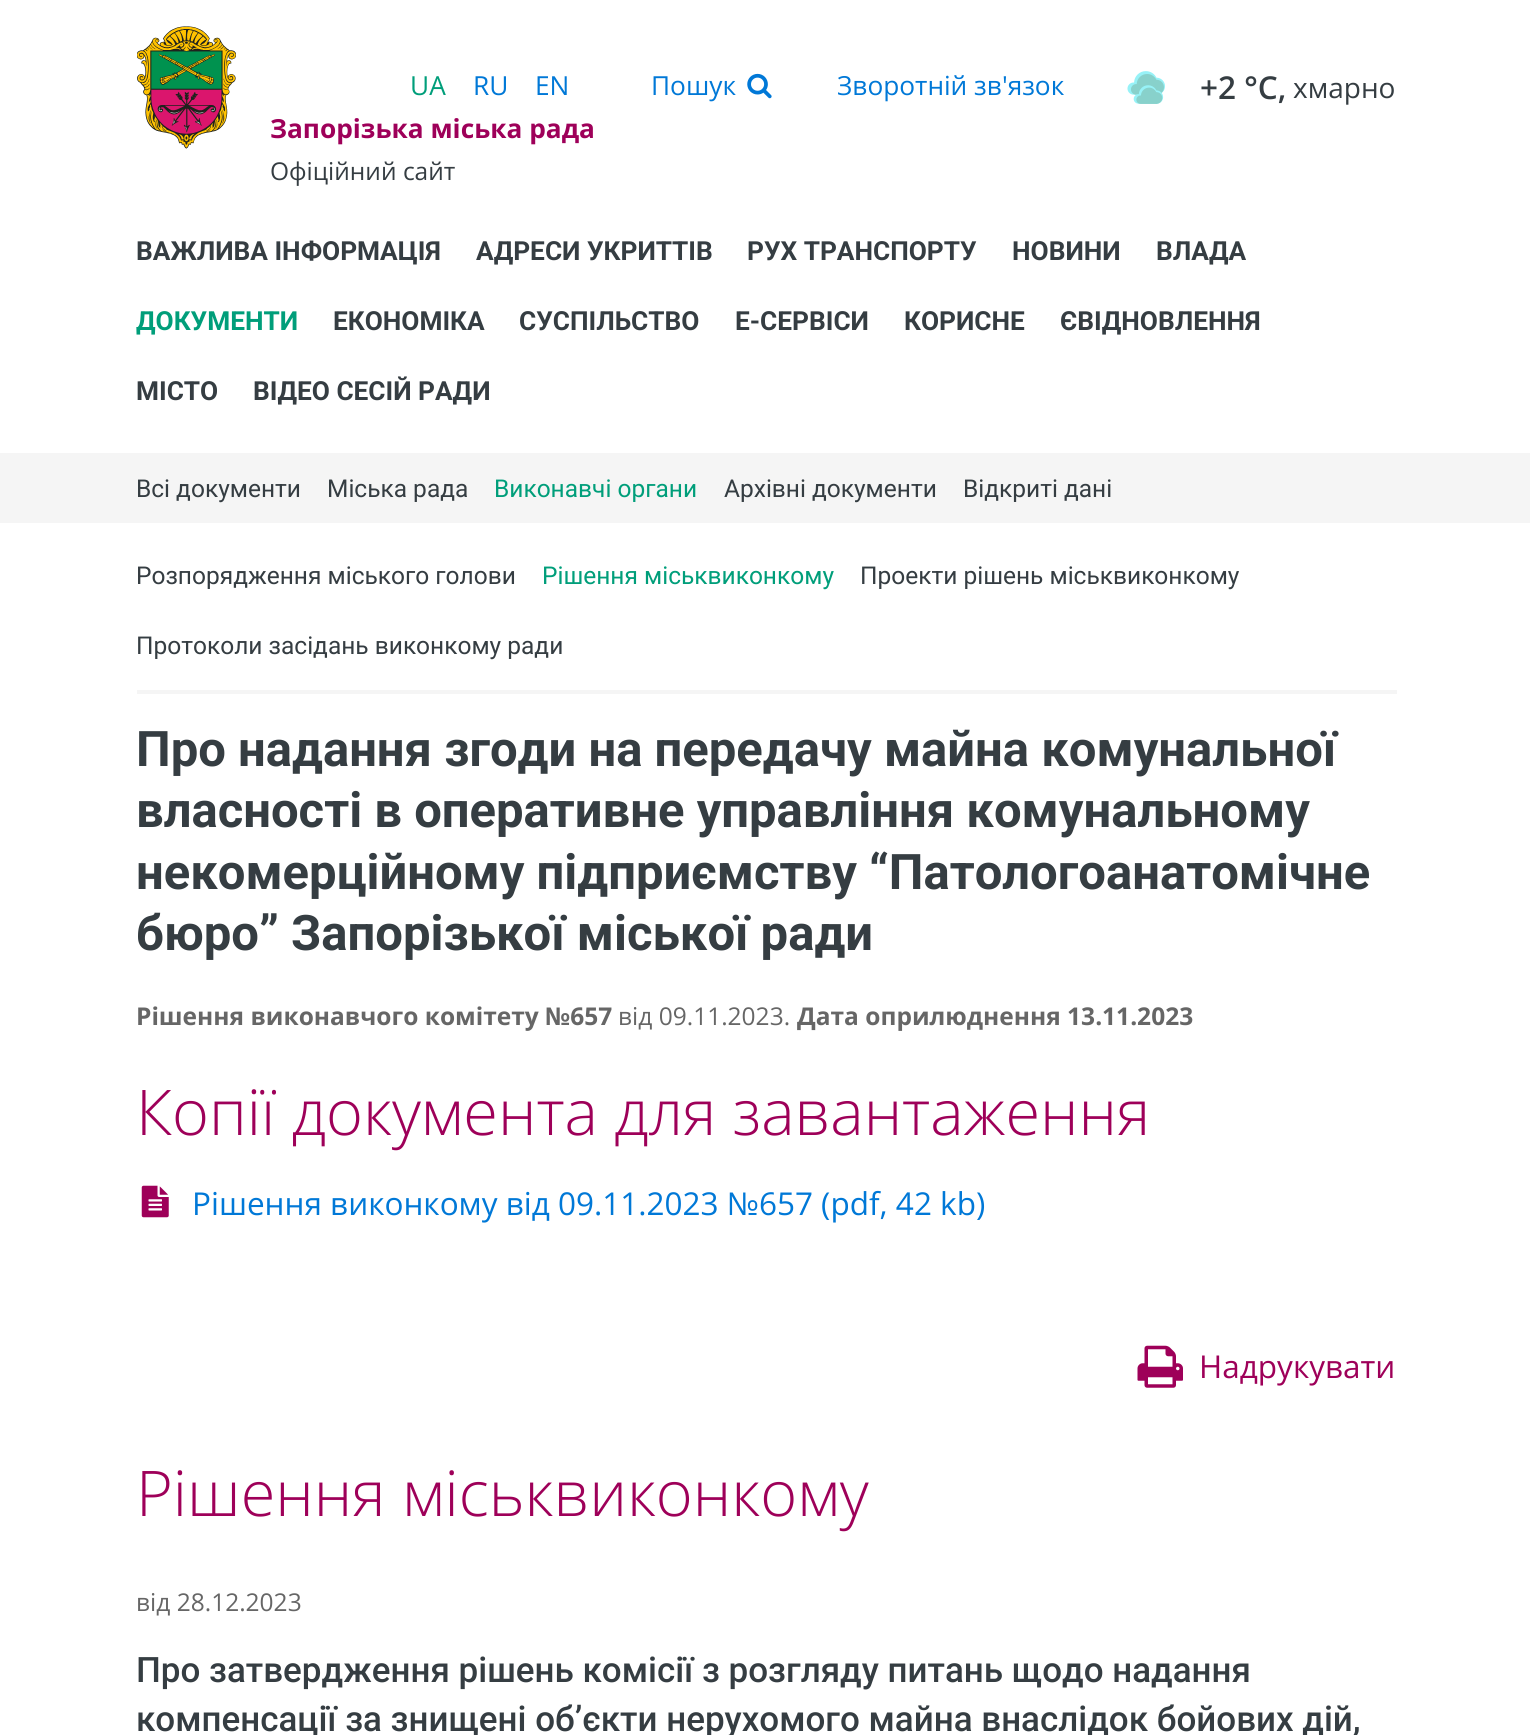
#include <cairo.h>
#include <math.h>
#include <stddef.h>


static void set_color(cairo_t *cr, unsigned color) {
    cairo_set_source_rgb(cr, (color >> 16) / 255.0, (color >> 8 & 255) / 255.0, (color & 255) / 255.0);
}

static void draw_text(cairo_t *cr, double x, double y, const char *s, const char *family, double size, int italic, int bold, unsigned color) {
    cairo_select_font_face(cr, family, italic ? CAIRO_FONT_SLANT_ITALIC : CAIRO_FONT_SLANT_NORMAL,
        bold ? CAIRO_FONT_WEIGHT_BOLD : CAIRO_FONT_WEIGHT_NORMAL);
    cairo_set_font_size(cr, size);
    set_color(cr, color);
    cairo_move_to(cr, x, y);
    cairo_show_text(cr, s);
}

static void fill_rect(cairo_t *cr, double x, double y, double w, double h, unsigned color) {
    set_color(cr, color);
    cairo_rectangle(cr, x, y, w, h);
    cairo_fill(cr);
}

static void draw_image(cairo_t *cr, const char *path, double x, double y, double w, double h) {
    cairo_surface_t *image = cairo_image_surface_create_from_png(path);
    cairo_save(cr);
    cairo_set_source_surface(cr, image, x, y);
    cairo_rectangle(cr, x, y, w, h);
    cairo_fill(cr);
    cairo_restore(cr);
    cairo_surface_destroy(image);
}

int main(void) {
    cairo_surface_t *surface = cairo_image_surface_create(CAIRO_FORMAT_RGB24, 1530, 1735);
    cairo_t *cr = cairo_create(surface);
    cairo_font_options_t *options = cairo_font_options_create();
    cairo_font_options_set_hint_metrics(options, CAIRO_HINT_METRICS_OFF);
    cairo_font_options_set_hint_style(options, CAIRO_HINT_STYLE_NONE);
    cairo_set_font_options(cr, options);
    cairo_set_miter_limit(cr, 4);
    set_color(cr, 0xFFFFFF);
    cairo_paint(cr);
    draw_text(cr, 410, 95, "UA", "Open Sans", 26.25, 0, 0, 0x009E7A);
    draw_text(cr, 473, 95, "RU", "Open Sans", 26.25, 0, 0, 0x0078D7);
    draw_text(cr, 535, 95, "EN", "Open Sans", 26.25, 0, 0, 0x0078D7);
    draw_text(cr, 651, 95, "Пошук", "Open Sans", 26.25, 0, 0, 0x0078D7);
    draw_image(cr, "assets/img1.png", 747, 73, 25, 26);
    draw_text(cr, 837, 95, "Зворотній зв'язок", "Open Sans", 26.25, 0, 0, 0x0078D7);
    draw_image(cr, "assets/img2.png", 1127, 71, 38, 33);
    draw_text(cr, 1200, 99, "+2 °С,", "Open Sans SemiBold", 31.5, 0, 0, 0x353D42);
    draw_text(cr, 1293, 98, "хмарно", "Open Sans", 28, 0, 0, 0x353D42);
    draw_image(cr, "assets/img3.png", 137, 26, 99, 123);
    draw_text(cr, 270, 138, "Запорізька міська рада", "Open Sans", 26.25, 0, 1, 0x9E0059);
    draw_text(cr, 270, 180, "Офіційний сайт", "Open Sans", 24.5, 0, 0, 0x353D42);
    draw_text(cr, 136, 260, "ВАЖЛИВА ІНФОРМАЦІЯ", "Roboto", 26.25, 0, 1, 0x353D42);
    draw_text(cr, 476, 260, "АДРЕСИ УКРИТТІВ", "Roboto", 26.25, 0, 1, 0x353D42);
    draw_text(cr, 747, 260, "РУХ ТРАНСПОРТУ", "Roboto", 26.25, 0, 1, 0x353D42);
    draw_text(cr, 1012, 260, "НОВИНИ", "Roboto", 26.25, 0, 1, 0x353D42);
    draw_text(cr, 1156, 260, "ВЛАДА", "Roboto", 26.25, 0, 1, 0x353D42);
    draw_text(cr, 136, 330, "ДОКУМЕНТИ", "Roboto", 26.25, 0, 1, 0x009E7A);
    draw_text(cr, 333, 330, "ЕКОНОМІКА", "Roboto", 26.25, 0, 1, 0x353D42);
    draw_text(cr, 519, 330, "СУСПІЛЬСТВО", "Roboto", 26.25, 0, 1, 0x353D42);
    draw_text(cr, 735, 330, "Е-СЕРВІСИ", "Roboto", 26.25, 0, 1, 0x353D42);
    draw_text(cr, 904, 330, "КОРИСНЕ", "Roboto", 26.25, 0, 1, 0x353D42);
    draw_text(cr, 1060, 330, "ЄВІДНОВЛЕННЯ", "Roboto", 26.25, 0, 1, 0x353D42);
    draw_text(cr, 136, 400, "МІСТО", "Roboto", 26.25, 0, 1, 0x353D42);
    draw_text(cr, 253, 400, "ВІДЕО СЕСІЙ РАДИ", "Roboto", 26.25, 0, 1, 0x353D42);
    fill_rect(cr, 0, 453, 1530, 70, 0xF5F5F5);
    draw_text(cr, 136, 497, "Всі документи", "Roboto", 24.5, 0, 0, 0x353D42);
    draw_text(cr, 327, 497, "Міська рада", "Roboto", 24.5, 0, 0, 0x353D42);
    draw_text(cr, 494, 497, "Виконавчі органи", "Roboto", 24.5, 0, 0, 0x009E7A);
    draw_text(cr, 724, 497, "Архівні документи", "Roboto", 24.5, 0, 0, 0x353D42);
    draw_text(cr, 963, 497, "Відкриті дані", "Roboto", 24.5, 0, 0, 0x353D42);
    fill_rect(cr, 137, 690, 1260, 4, 0xF5F5F5);
    draw_text(cr, 136, 584, "Розпорядження міського голови", "Roboto", 24.5, 0, 0, 0x353D42);
    draw_text(cr, 542, 584, "Рішення міськвиконкому", "Roboto", 24.5, 0, 0, 0x009E7A);
    draw_text(cr, 860, 584, "Проекти рішень міськвиконкому", "Roboto", 24.5, 0, 0, 0x353D42);
    draw_text(cr, 136, 654, "Протоколи засідань виконкому ради", "Roboto", 24.5, 0, 0, 0x353D42);
    draw_text(cr, 136, 766, "Про надання згоди на передачу майна комунальної", "Roboto", 49, 0, 1, 0x353D42);
    draw_text(cr, 136, 827, "власності в оперативне управління комунальному", "Roboto", 49, 0, 1, 0x353D42);
    draw_text(cr, 136, 889, "некомерційному підприємству “Патологоанатомічне", "Roboto", 49, 0, 1, 0x353D42);
    draw_text(cr, 136, 950, "бюро” Запорізької міської ради", "Roboto", 49, 0, 1, 0x353D42);
    draw_text(cr, 136, 1025, "Рішення виконавчого комітету №657", "Open Sans", 24.5, 0, 1, 0x666666);
    draw_text(cr, 618, 1025, "від 09.11.2023.", "Open Sans", 24.5, 0, 0, 0x666666);
    draw_text(cr, 797, 1025, "Дата оприлюднення 13.11.2023", "Open Sans", 24.5, 0, 1, 0x666666);
    draw_text(cr, 136, 1135, "Копії документа для завантаження", "Open Sans Light", 63, 0, 0, 0x9E0059);
    draw_image(cr, "assets/img4.png", 141, 1185, 28, 33);
    draw_text(cr, 192, 1215, "Рішення виконкому від 09.11.2023 №657 (pdf, 42 kb)", "Open Sans", 31.5, 0, 0, 0x0078D7);
    draw_image(cr, "assets/img5.png", 1137, 1345, 46, 43);
    draw_text(cr, 1199, 1378, "Надрукувати", "Open Sans", 31.5, 0, 0, 0x9E0059);
    draw_text(cr, 136, 1516, "Рішення міськвиконкому", "Open Sans Light", 63, 0, 0, 0x9E0059);
    draw_text(cr, 136, 1611, "від 28.12.2023", "Open Sans", 24.5, 0, 0, 0x666666);
    draw_text(cr, 136, 1682, "Про затвердження рішень комісії з розгляду питань щодо надання", "Roboto Medium", 35, 0, 0, 0x353D42);
    draw_text(cr, 136, 1731, "компенсації за знищені об’єкти нерухомого майна внаслідок бойових дій,", "Roboto Medium", 35, 0, 0, 0x353D42);
    cairo_surface_write_to_png(surface, "output.png");
    cairo_font_options_destroy(options);
    cairo_destroy(cr);
    cairo_surface_destroy(surface);
    return 0;
}
